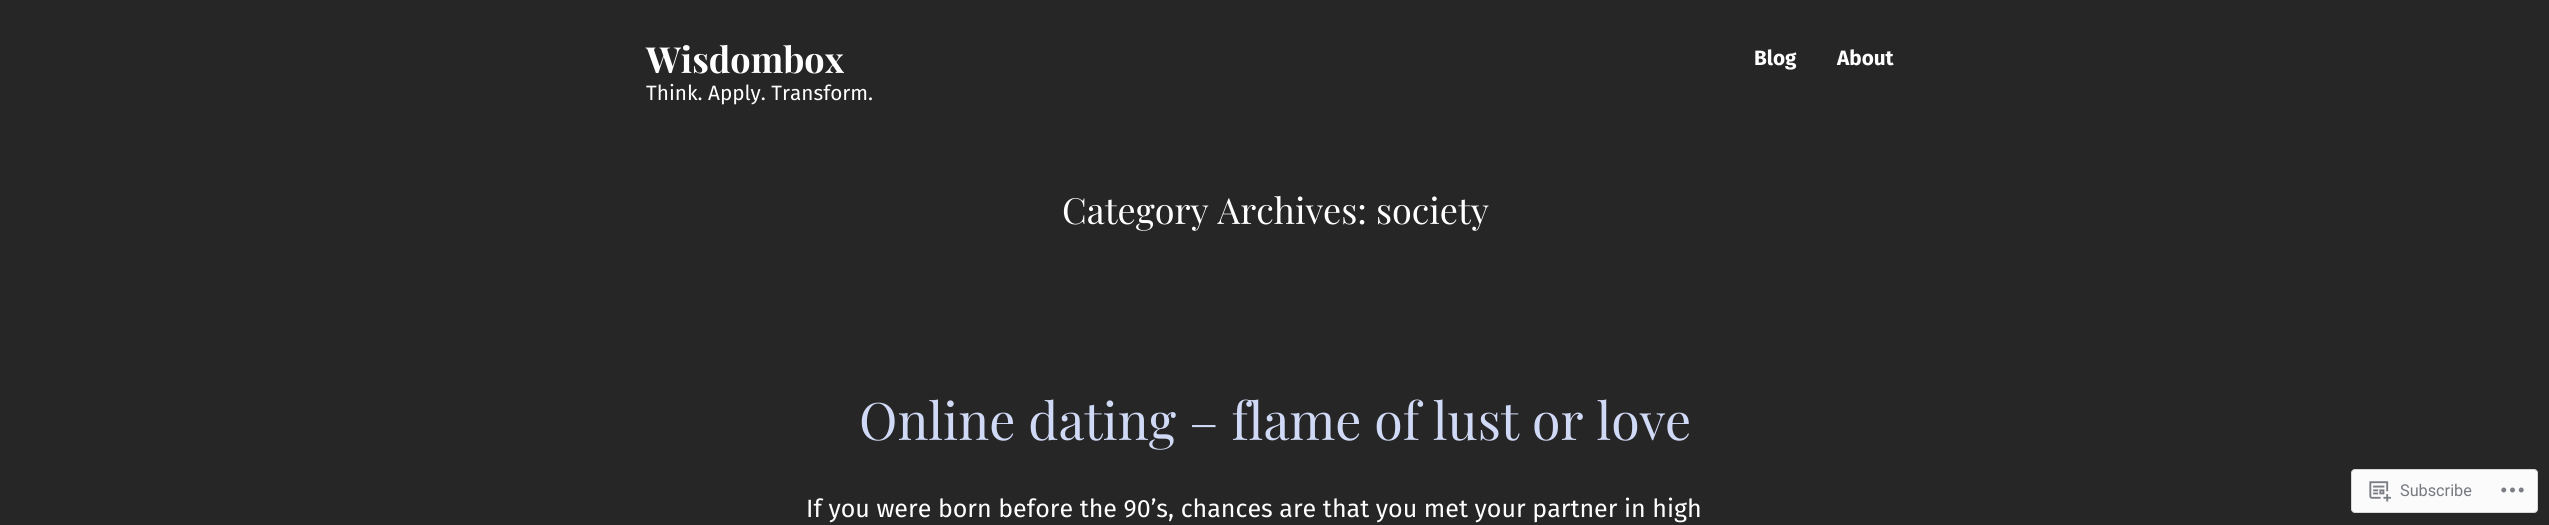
#include <cairo.h>
#include <math.h>
#include <stddef.h>


static void set_color(cairo_t *cr, unsigned color) {
    cairo_set_source_rgb(cr, (color >> 16) / 255.0, (color >> 8 & 255) / 255.0, (color & 255) / 255.0);
}

static void draw_text(cairo_t *cr, double x, double y, const char *s, const char *family, double size, int italic, int bold, unsigned color) {
    cairo_select_font_face(cr, family, italic ? CAIRO_FONT_SLANT_ITALIC : CAIRO_FONT_SLANT_NORMAL,
        bold ? CAIRO_FONT_WEIGHT_BOLD : CAIRO_FONT_WEIGHT_NORMAL);
    cairo_set_font_size(cr, size);
    set_color(cr, color);
    cairo_move_to(cr, x, y);
    cairo_show_text(cr, s);
}

static void rounded_rect(cairo_t *cr, double x, double y, double w, double h, double r) {
    cairo_new_sub_path(cr);
    cairo_arc(cr, x + w - r, y + h - r, r, 0, M_PI / 2);
    cairo_arc(cr, x + r, y + h - r, r, M_PI / 2, M_PI);
    cairo_arc(cr, x + r, y + r, r, M_PI, 1.5 * M_PI);
    cairo_arc(cr, x + w - r, y + r, r, 1.5 * M_PI, 2 * M_PI);
    cairo_close_path(cr);
}

static void draw_image(cairo_t *cr, const char *path, double x, double y, double w, double h) {
    cairo_surface_t *image = cairo_image_surface_create_from_png(path);
    cairo_save(cr);
    cairo_set_source_surface(cr, image, x, y);
    cairo_rectangle(cr, x, y, w, h);
    cairo_fill(cr);
    cairo_restore(cr);
    cairo_surface_destroy(image);
}

int main(void) {
    cairo_surface_t *surface = cairo_image_surface_create(CAIRO_FORMAT_RGB24, 2549, 525);
    cairo_t *cr = cairo_create(surface);
    cairo_font_options_t *options = cairo_font_options_create();
    cairo_font_options_set_hint_metrics(options, CAIRO_HINT_METRICS_OFF);
    cairo_font_options_set_hint_style(options, CAIRO_HINT_STYLE_NONE);
    cairo_set_font_options(cr, options);
    cairo_set_miter_limit(cr, 4);
    set_color(cr, 0x262626);
    cairo_paint(cr);
    draw_text(cr, 646, 73, "Wisdombox", "Playfair Display", 36, 0, 1, 0xFFFFFF);
    draw_text(cr, 1754, 65, "Blog", "Fira Sans", 20.75, 0, 1, 0xFFFFFF);
    draw_text(cr, 1837, 65, "About", "Fira Sans", 20.75, 0, 1, 0xFFFFFF);
    draw_text(cr, 646, 100, "Think. Apply. Transform.", "Fira Sans", 20.75, 0, 0, 0xFFFFFF);
    draw_text(cr, 1062, 224, "Category Archives: society", "Playfair Display", 36, 0, 0, 0xFFFFFF);
    draw_text(cr, 859, 440, "Online dating – flame of lust or love", "Playfair Display", 51.8, 0, 0, 0xD0D9F5);
    draw_text(cr, 806, 517, "If you were born before the 90’s, chances are that you met your partner in high", "Fira Sans", 25, 0, 0, 0xFFFFFF);
    set_color(cr, 0xFBFBFB);
    rounded_rect(cr, 2351.5, 469.5, 186, 43, 3.5);
    cairo_fill_preserve(cr);
    set_color(cr, 0xD8D8DA);
    cairo_set_line_width(cr, 1);
    cairo_stroke(cr);
    draw_image(cr, "assets/img1.png", 2369, 481, 22, 21);
    draw_text(cr, 2400, 496, "Subscribe", "Roboto", 16.25, 0, 0, 0x767A80);
    draw_image(cr, "assets/img2.png", 2501, 487, 23, 6);
    cairo_surface_write_to_png(surface, "output.png");
    cairo_font_options_destroy(options);
    cairo_destroy(cr);
    cairo_surface_destroy(surface);
    return 0;
}
